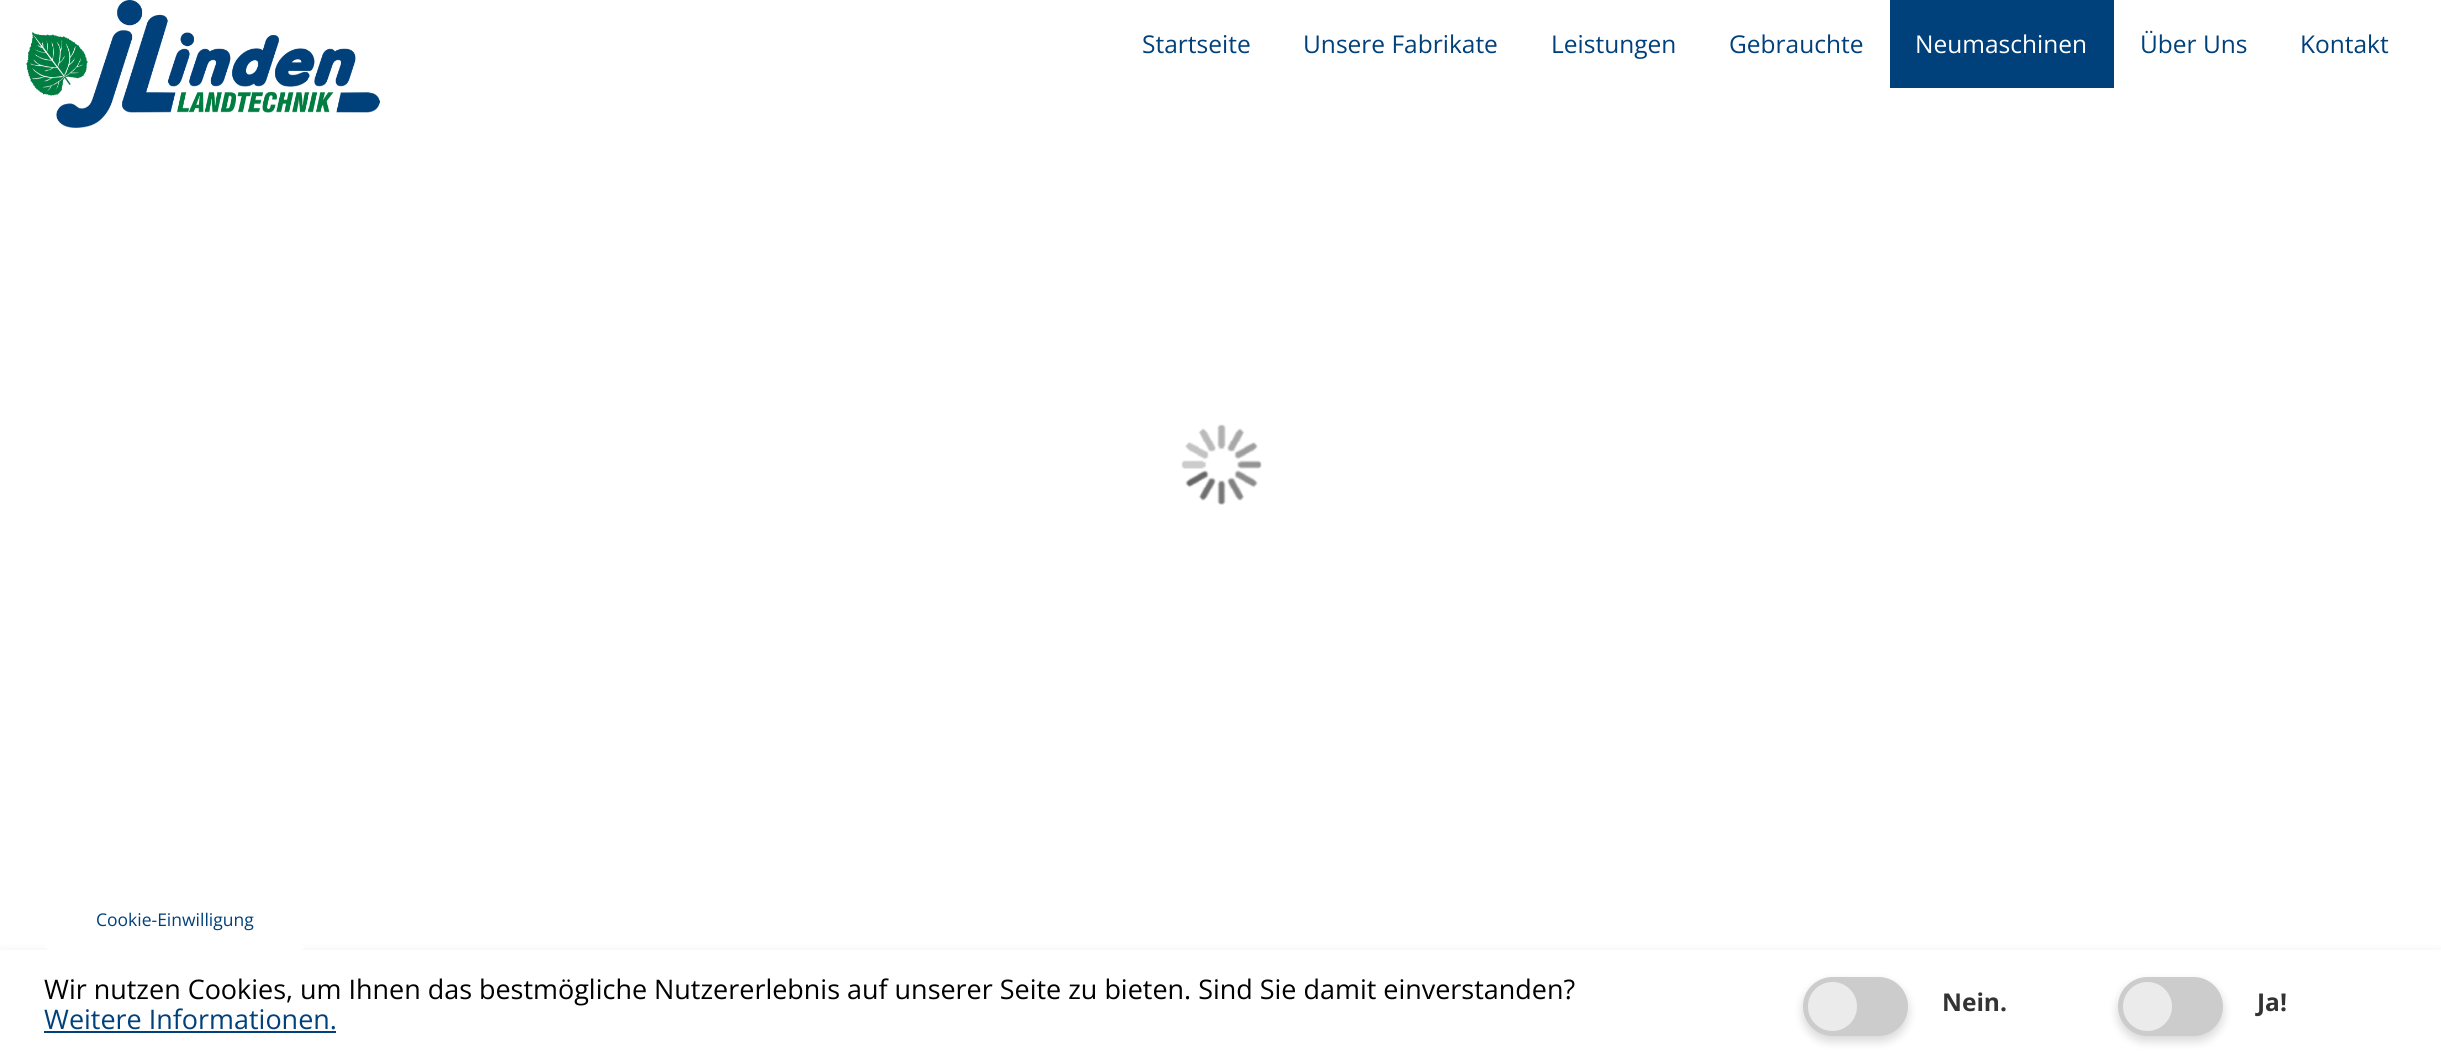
#include <cairo.h>
#include <math.h>
#include <stddef.h>


static void set_color(cairo_t *cr, unsigned color) {
    cairo_set_source_rgb(cr, (color >> 16) / 255.0, (color >> 8 & 255) / 255.0, (color & 255) / 255.0);
}

static void draw_text(cairo_t *cr, double x, double y, const char *s, const char *family, double size, int italic, int bold, unsigned color) {
    cairo_select_font_face(cr, family, italic ? CAIRO_FONT_SLANT_ITALIC : CAIRO_FONT_SLANT_NORMAL,
        bold ? CAIRO_FONT_WEIGHT_BOLD : CAIRO_FONT_WEIGHT_NORMAL);
    cairo_set_font_size(cr, size);
    set_color(cr, color);
    cairo_move_to(cr, x, y);
    cairo_show_text(cr, s);
}

static void fill_rect(cairo_t *cr, double x, double y, double w, double h, unsigned color) {
    set_color(cr, color);
    cairo_rectangle(cr, x, y, w, h);
    cairo_fill(cr);
}

static void rounded_rect(cairo_t *cr, double x, double y, double w, double h, double r) {
    cairo_new_sub_path(cr);
    cairo_arc(cr, x + w - r, y + h - r, r, 0, M_PI / 2);
    cairo_arc(cr, x + r, y + h - r, r, M_PI / 2, M_PI);
    cairo_arc(cr, x + r, y + r, r, M_PI, 1.5 * M_PI);
    cairo_arc(cr, x + w - r, y + r, r, 1.5 * M_PI, 2 * M_PI);
    cairo_close_path(cr);
}

static void draw_shadow(cairo_t *cr, double x, double y, double w, double h, double r, double blur, double alpha) {
    cairo_push_group_with_content(cr, CAIRO_CONTENT_ALPHA);
    cairo_set_operator(cr, CAIRO_OPERATOR_SOURCE);
    for (int i = 15; i >= -15 && fmin(w, h) + blur * i / 3 > 0; i -= 2) {
        double e = blur * i / 6;
        cairo_set_source_rgba(cr, 0, 0, 0, alpha * erfc((i - 1) / 8.5) / 2);
        rounded_rect(cr, x - e, y - e, w + 2 * e, h + 2 * e, fmax(0, fmin(r + e + blur * .6, fmin(w, h) / 2 + e)));
        cairo_fill(cr);
    }
    cairo_pattern_t *soft = cairo_pop_group(cr);
    cairo_mask(cr, soft);
    cairo_pattern_destroy(soft);
}

static void draw_image(cairo_t *cr, const char *path, double x, double y, double w, double h) {
    cairo_surface_t *image = cairo_image_surface_create_from_png(path);
    cairo_save(cr);
    cairo_set_source_surface(cr, image, x, y);
    cairo_rectangle(cr, x, y, w, h);
    cairo_fill(cr);
    cairo_restore(cr);
    cairo_surface_destroy(image);
}

int main(void) {
    cairo_surface_t *surface = cairo_image_surface_create(CAIRO_FORMAT_RGB24, 2441, 1061);
    cairo_t *cr = cairo_create(surface);
    cairo_font_options_t *options = cairo_font_options_create();
    cairo_font_options_set_hint_metrics(options, CAIRO_HINT_METRICS_OFF);
    cairo_font_options_set_hint_style(options, CAIRO_HINT_STYLE_NONE);
    cairo_set_font_options(cr, options);
    cairo_set_miter_limit(cr, 4);
    set_color(cr, 0xFFFFFF);
    cairo_paint(cr);
    draw_image(cr, "assets/img1.png", 26, 0, 354, 128);
    draw_text(cr, 1142, 53, "Startseite", "Open Sans", 24.5, 0, 0, 0x00407B);
    draw_text(cr, 1303, 53, "Unsere Fabrikate", "Open Sans", 24.5, 0, 0, 0x00407B);
    draw_text(cr, 1551, 53, "Leistungen", "Open Sans", 24.5, 0, 0, 0x00407B);
    draw_text(cr, 1729, 53, "Gebrauchte", "Open Sans", 24.5, 0, 0, 0x00407B);
    fill_rect(cr, 1890, 0, 224, 88, 0x00407B);
    draw_text(cr, 1915, 53, "Neumaschinen", "Open Sans", 24.5, 0, 0, 0xFFFFFF);
    draw_text(cr, 2140, 53, "Über Uns", "Open Sans", 24.5, 0, 0, 0x00407B);
    draw_text(cr, 2300, 53, "Kontakt", "Open Sans", 24.5, 0, 0, 0x00407B);
    draw_image(cr, "assets/img2.png", 1181, 424, 81, 81);
    set_color(cr, 0x000000);
    draw_shadow(cr, 0, 959, 2441, 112, 0, 9, 0.15);
    fill_rect(cr, 0, 950, 2441, 111, 0xFFFFFF);
    rounded_rect(cr, 44, 889, 262, 61, 7);
    cairo_fill(cr);
    draw_text(cr, 96, 926, "Cookie-Einwilligung", "Open Sans", 17.5, 0, 0, 0x00407B);
    draw_text(cr, 44, 999, "Wir nutzen Cookies, um Ihnen das bestmögliche Nutzererlebnis auf unserer Seite zu bieten. Sind Sie damit einverstanden?", "Open Sans", 26.95, 0, 0, 0x000000);
    draw_text(cr, 44, 1029, "Weitere Informationen.", "Open Sans", 26.95, 0, 0, 0x00407B);
    fill_rect(cr, 44, 1031, 292, 2, 0x00407B);
    set_color(cr, 0x000000);
    draw_shadow(cr, 1803, 982, 105, 59, 29.5, 5, 0.16);
    set_color(cr, 0xCCCCCC);
    rounded_rect(cr, 1805.5, 979.5, 100, 54, 27);
    cairo_fill_preserve(cr);
    cairo_set_line_width(cr, 5);
    cairo_stroke(cr);
    set_color(cr, 0xEBEBEB);
    cairo_arc(cr, 1832.5, 1006.5, 24.5, 0, 2 * M_PI);
    cairo_fill(cr);
    draw_text(cr, 1942, 1011, "Nein.", "Open Sans", 24.5, 0, 1, 0x333333);
    set_color(cr, 0x000000);
    draw_shadow(cr, 2118, 982, 105, 59, 29.5, 5, 0.16);
    set_color(cr, 0xCCCCCC);
    rounded_rect(cr, 2120.5, 979.5, 100, 54, 27);
    cairo_fill_preserve(cr);
    cairo_stroke(cr);
    set_color(cr, 0xEBEBEB);
    cairo_arc(cr, 2147.5, 1006.5, 24.5, 0, 2 * M_PI);
    cairo_fill(cr);
    draw_text(cr, 2257, 1011, "Ja!", "Open Sans", 24.5, 0, 1, 0x333333);
    cairo_surface_write_to_png(surface, "output.png");
    cairo_font_options_destroy(options);
    cairo_destroy(cr);
    cairo_surface_destroy(surface);
    return 0;
}
